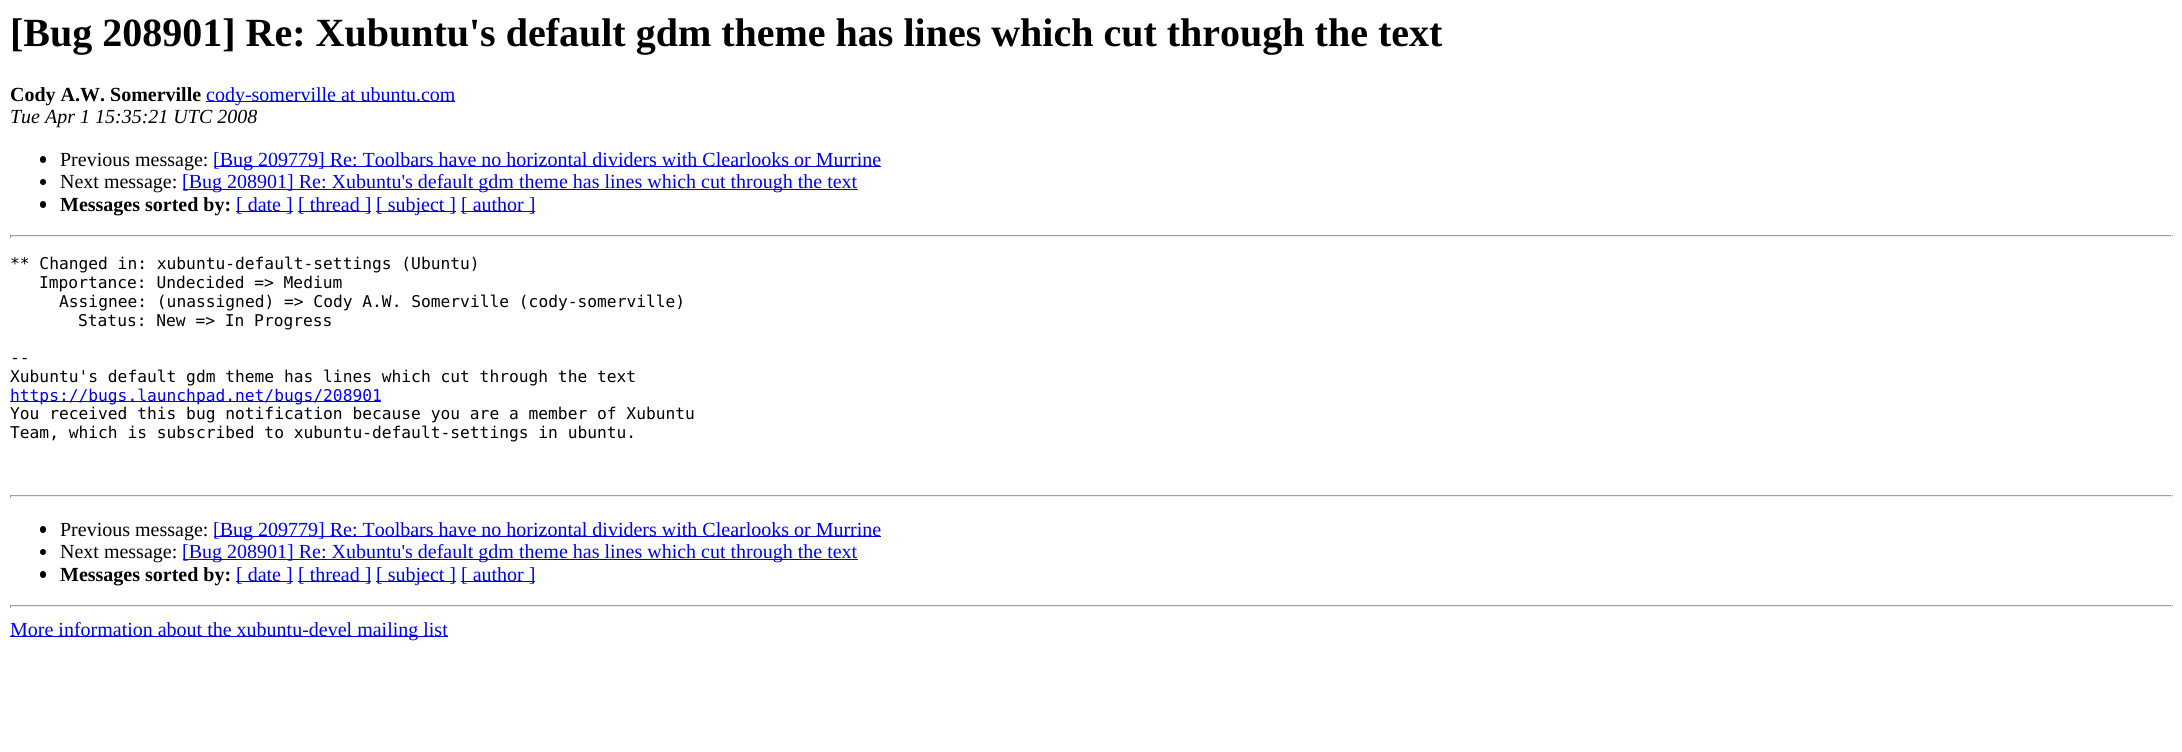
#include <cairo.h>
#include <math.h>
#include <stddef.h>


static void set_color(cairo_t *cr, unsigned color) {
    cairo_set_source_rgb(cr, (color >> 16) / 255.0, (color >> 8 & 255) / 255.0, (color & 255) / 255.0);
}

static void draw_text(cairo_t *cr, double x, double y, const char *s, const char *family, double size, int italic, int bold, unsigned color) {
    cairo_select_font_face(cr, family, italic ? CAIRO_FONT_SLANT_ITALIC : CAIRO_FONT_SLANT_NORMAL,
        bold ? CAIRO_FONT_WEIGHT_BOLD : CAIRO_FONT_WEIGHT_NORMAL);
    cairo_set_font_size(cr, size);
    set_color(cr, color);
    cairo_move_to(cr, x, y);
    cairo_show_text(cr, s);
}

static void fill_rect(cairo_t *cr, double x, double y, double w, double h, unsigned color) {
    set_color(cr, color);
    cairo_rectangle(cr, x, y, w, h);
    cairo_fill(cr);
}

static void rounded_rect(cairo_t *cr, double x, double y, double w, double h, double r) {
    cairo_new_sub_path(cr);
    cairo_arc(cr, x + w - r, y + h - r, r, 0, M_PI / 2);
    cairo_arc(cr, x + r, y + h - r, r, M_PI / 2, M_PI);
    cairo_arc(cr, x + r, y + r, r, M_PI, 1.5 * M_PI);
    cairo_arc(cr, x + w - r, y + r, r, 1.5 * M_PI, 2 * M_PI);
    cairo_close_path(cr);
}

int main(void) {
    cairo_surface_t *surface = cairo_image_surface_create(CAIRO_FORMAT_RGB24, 2182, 752);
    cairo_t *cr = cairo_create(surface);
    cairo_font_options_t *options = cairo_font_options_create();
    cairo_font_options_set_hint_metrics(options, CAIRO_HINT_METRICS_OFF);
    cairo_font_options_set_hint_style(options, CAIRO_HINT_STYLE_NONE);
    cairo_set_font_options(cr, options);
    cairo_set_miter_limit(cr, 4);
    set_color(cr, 0xFFFFFF);
    cairo_paint(cr);
    draw_text(cr, 10, 46, "[Bug 208901] Re: Xubuntu's default gdm theme has lines which cut through the text", "Liberation Serif", 40, 0, 1, 0x000000);
    draw_text(cr, 10, 101, "Cody A.W. Somerville", "Liberation Serif", 20, 0, 1, 0x000000);
    fill_rect(cr, 206, 101, 249, 1, 0x0000EE);
    draw_text(cr, 206, 101, "cody-somerville at ubuntu.com", "Liberation Serif", 20, 0, 0, 0x0000EE);
    draw_text(cr, 10, 123, "Tue Apr 1 15:35:21 UTC 2008", "Liberation Serif", 20, 1, 0, 0x000000);
    rounded_rect(cr, 40, 156, 6, 7, 3);
    cairo_fill(cr);
    draw_text(cr, 60, 166, "Previous message:", "Liberation Serif", 20, 0, 0, 0x000000);
    fill_rect(cr, 214, 166, 667, 1, 0x0000EE);
    draw_text(cr, 213, 166, "[Bug 209779] Re: Toolbars have no horizontal dividers with Clearlooks or Murrine", "Liberation Serif", 20, 0, 0, 0x0000EE);
    set_color(cr, 0x000000);
    cairo_new_path(cr);
    cairo_arc(cr, 43, 182, 3, 0, 2 * M_PI);
    cairo_fill(cr);
    draw_text(cr, 60, 188, "Next message:", "Liberation Serif", 20, 0, 0, 0x000000);
    fill_rect(cr, 183, 189, 675, 1, 0x0000EE);
    draw_text(cr, 182, 188, "[Bug 208901] Re: Xubuntu's default gdm theme has lines which cut through the text", "Liberation Serif", 20, 0, 0, 0x0000EE);
    set_color(cr, 0x000000);
    rounded_rect(cr, 40, 201, 6, 7, 3);
    cairo_fill(cr);
    draw_text(cr, 60, 211, "Messages sorted by:", "Liberation Serif", 20, 0, 1, 0x000000);
    fill_rect(cr, 236, 211, 57, 1, 0x0000EE);
    draw_text(cr, 236, 211, "[ date ]", "Liberation Serif", 20, 0, 0, 0x0000EE);
    fill_rect(cr, 298, 211, 73, 1, 0x0000EE);
    draw_text(cr, 298, 211, "[ thread ]", "Liberation Serif", 20, 0, 0, 0x0000EE);
    fill_rect(cr, 376, 211, 80, 1, 0x0000EE);
    draw_text(cr, 376, 211, "[ subject ]", "Liberation Serif", 20, 0, 0, 0x0000EE);
    fill_rect(cr, 461, 211, 74, 1, 0x0000EE);
    draw_text(cr, 461, 211, "[ author ]", "Liberation Serif", 20, 0, 0, 0x0000EE);
    fill_rect(cr, 10, 235, 2163, 1, 0x9F9F9F);
    fill_rect(cr, 2171, 235, 1, 3, 0xEEEEEE);
    fill_rect(cr, 10, 236, 2163, 1, 0xEEEEEE);
    fill_rect(cr, 10, 235, 1, 3, 0x9F9F9F);
    draw_text(cr, 10, 269, "** Changed in: xubuntu-default-settings (Ubuntu)", "DejaVu Sans Mono", 16.25, 0, 0, 0x000000);
    draw_text(cr, 39, 288, "Importance: Undecided => Medium", "DejaVu Sans Mono", 16.25, 0, 0, 0x000000);
    draw_text(cr, 59, 307, "Assignee: (unassigned) => Cody A.W. Somerville (cody-somerville)", "DejaVu Sans Mono", 16.25, 0, 0, 0x000000);
    draw_text(cr, 78, 326, "Status: New => In Progress", "DejaVu Sans Mono", 16.25, 0, 0, 0x000000);
    draw_text(cr, 10, 363, "--", "DejaVu Sans Mono", 16.25, 0, 0, 0x000000);
    draw_text(cr, 10, 382, "Xubuntu's default gdm theme has lines which cut through the text", "DejaVu Sans Mono", 16.25, 0, 0, 0x000000);
    fill_rect(cr, 10, 401, 371, 1, 0x0000EE);
    draw_text(cr, 10, 401, "https://bugs.launchpad.net/bugs/208901", "DejaVu Sans Mono", 16.25, 0, 0, 0x0000EE);
    draw_text(cr, 10, 419, "You received this bug notification because you are a member of Xubuntu", "DejaVu Sans Mono", 16.25, 0, 0, 0x000000);
    draw_text(cr, 10, 438, "Team, which is subscribed to xubuntu-default-settings in ubuntu.", "DejaVu Sans Mono", 16.25, 0, 0, 0x000000);
    fill_rect(cr, 10, 495, 2163, 1, 0x9F9F9F);
    fill_rect(cr, 2171, 495, 1, 3, 0xEEEEEE);
    fill_rect(cr, 10, 496, 2163, 1, 0xEEEEEE);
    fill_rect(cr, 10, 495, 1, 3, 0x9F9F9F);
    set_color(cr, 0x000000);
    rounded_rect(cr, 40, 526, 6, 7, 3);
    cairo_fill(cr);
    draw_text(cr, 60, 536, "Previous message:", "Liberation Serif", 20, 0, 0, 0x000000);
    fill_rect(cr, 214, 536, 667, 1, 0x0000EE);
    draw_text(cr, 213, 536, "[Bug 209779] Re: Toolbars have no horizontal dividers with Clearlooks or Murrine", "Liberation Serif", 20, 0, 0, 0x0000EE);
    set_color(cr, 0x000000);
    cairo_new_path(cr);
    cairo_arc(cr, 43, 552, 3, 0, 2 * M_PI);
    cairo_fill(cr);
    draw_text(cr, 60, 558, "Next message:", "Liberation Serif", 20, 0, 0, 0x000000);
    fill_rect(cr, 183, 559, 675, 1, 0x0000EE);
    draw_text(cr, 182, 558, "[Bug 208901] Re: Xubuntu's default gdm theme has lines which cut through the text", "Liberation Serif", 20, 0, 0, 0x0000EE);
    set_color(cr, 0x000000);
    rounded_rect(cr, 40, 571, 6, 7, 3);
    cairo_fill(cr);
    draw_text(cr, 60, 581, "Messages sorted by:", "Liberation Serif", 20, 0, 1, 0x000000);
    fill_rect(cr, 236, 581, 57, 1, 0x0000EE);
    draw_text(cr, 236, 581, "[ date ]", "Liberation Serif", 20, 0, 0, 0x0000EE);
    fill_rect(cr, 298, 581, 73, 1, 0x0000EE);
    draw_text(cr, 298, 581, "[ thread ]", "Liberation Serif", 20, 0, 0, 0x0000EE);
    fill_rect(cr, 376, 581, 80, 1, 0x0000EE);
    draw_text(cr, 376, 581, "[ subject ]", "Liberation Serif", 20, 0, 0, 0x0000EE);
    fill_rect(cr, 461, 581, 74, 1, 0x0000EE);
    draw_text(cr, 461, 581, "[ author ]", "Liberation Serif", 20, 0, 0, 0x0000EE);
    fill_rect(cr, 10, 605, 2163, 1, 0x9F9F9F);
    fill_rect(cr, 2171, 605, 1, 3, 0xEEEEEE);
    fill_rect(cr, 10, 606, 2163, 1, 0xEEEEEE);
    fill_rect(cr, 10, 605, 1, 3, 0x9F9F9F);
    fill_rect(cr, 10, 636, 438, 1, 0x0000EE);
    draw_text(cr, 10, 636, "More information about the xubuntu-devel mailing list", "Liberation Serif", 20, 0, 0, 0x0000EE);
    cairo_surface_write_to_png(surface, "output.png");
    cairo_font_options_destroy(options);
    cairo_destroy(cr);
    cairo_surface_destroy(surface);
    return 0;
}
